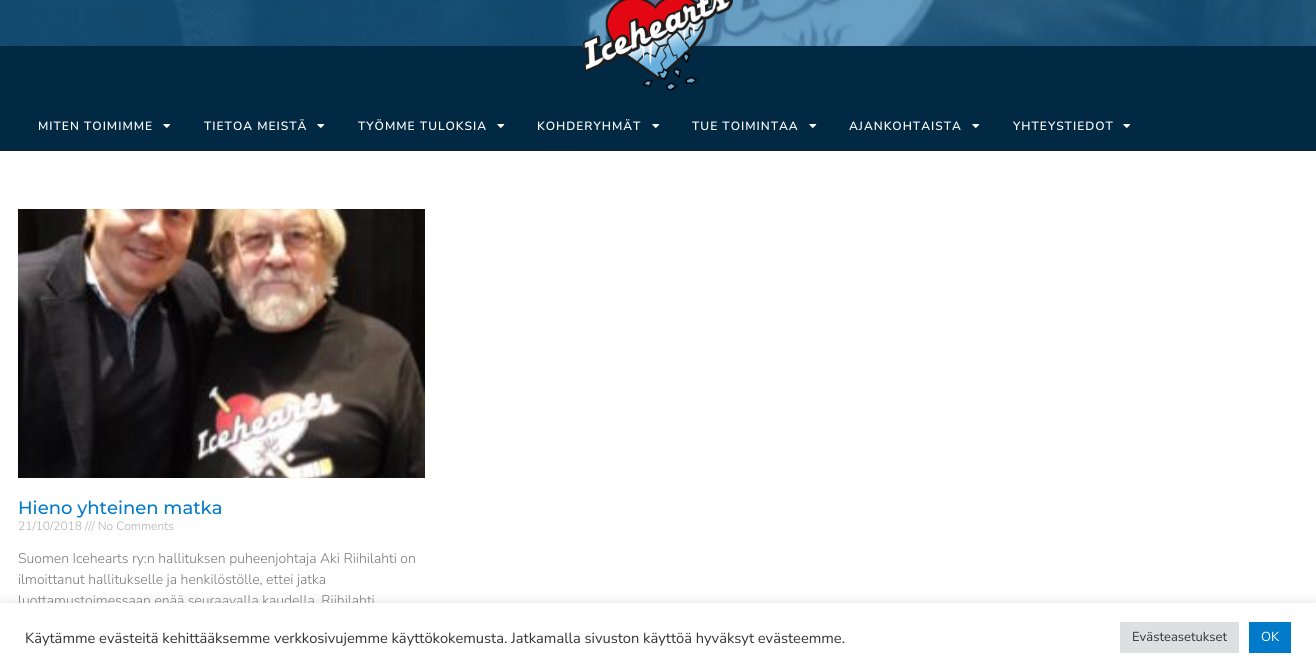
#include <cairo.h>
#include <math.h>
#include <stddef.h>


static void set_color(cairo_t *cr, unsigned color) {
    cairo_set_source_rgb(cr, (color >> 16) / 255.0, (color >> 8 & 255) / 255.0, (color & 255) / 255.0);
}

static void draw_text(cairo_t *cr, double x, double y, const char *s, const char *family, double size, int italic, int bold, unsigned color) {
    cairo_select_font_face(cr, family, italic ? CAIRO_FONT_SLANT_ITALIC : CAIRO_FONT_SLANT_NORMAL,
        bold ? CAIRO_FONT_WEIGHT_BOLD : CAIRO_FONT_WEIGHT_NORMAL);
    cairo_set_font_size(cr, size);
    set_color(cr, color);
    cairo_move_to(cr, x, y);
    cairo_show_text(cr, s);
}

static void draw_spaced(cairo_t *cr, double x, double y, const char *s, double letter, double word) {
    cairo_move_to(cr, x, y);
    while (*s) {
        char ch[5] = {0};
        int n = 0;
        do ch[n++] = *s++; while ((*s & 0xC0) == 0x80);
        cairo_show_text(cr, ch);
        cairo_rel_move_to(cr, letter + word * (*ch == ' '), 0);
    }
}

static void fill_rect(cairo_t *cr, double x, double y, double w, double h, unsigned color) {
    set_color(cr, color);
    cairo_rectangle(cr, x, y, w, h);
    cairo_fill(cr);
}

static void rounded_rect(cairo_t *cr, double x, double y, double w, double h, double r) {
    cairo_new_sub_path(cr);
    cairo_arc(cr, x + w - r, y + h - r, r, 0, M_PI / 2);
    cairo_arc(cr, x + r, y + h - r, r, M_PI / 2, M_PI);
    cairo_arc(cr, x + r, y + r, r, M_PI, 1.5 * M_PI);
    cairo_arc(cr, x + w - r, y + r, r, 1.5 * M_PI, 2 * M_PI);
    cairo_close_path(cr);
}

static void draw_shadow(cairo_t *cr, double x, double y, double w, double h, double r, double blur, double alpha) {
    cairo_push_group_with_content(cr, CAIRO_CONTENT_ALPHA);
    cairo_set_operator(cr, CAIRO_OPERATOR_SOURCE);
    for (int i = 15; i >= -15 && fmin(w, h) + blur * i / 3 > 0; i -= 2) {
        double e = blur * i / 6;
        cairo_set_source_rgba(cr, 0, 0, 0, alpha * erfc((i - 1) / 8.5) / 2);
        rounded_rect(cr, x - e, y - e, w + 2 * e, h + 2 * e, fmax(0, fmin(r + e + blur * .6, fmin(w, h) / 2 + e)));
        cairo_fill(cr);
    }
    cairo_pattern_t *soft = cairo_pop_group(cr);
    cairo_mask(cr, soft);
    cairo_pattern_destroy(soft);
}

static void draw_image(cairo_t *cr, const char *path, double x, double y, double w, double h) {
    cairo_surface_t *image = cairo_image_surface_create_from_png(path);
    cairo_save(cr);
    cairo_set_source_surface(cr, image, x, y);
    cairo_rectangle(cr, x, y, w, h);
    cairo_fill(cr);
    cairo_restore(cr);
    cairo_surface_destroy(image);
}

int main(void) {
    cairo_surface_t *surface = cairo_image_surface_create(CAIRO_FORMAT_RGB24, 1316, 672);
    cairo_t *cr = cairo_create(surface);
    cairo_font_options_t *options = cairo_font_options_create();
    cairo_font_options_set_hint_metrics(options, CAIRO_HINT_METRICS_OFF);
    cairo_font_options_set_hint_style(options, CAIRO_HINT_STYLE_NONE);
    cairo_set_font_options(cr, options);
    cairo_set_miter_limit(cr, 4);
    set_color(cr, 0xFFFFFF);
    cairo_paint(cr);
    draw_image(cr, "assets/img1.png", 0, 0, 1316, 46);
    fill_rect(cr, 0, 46, 1316, 105, 0x012944);
    draw_image(cr, "assets/img2.png", 583, 0, 150, 91);
    cairo_select_font_face(cr, "Nunito Sans SemiBold", CAIRO_FONT_SLANT_NORMAL, CAIRO_FONT_WEIGHT_NORMAL);
    cairo_set_font_size(cr, 12);
    set_color(cr, 0xFFFFFF);
    draw_spaced(cr, 38, 130, "MITEN TOIMIMME", 1, 0);
    draw_image(cr, "assets/img3.png", 163, 124, 8, 4);
    draw_spaced(cr, 204, 130, "TIETOA MEISTÄ", 1, 0);
    draw_image(cr, "assets/img3.png", 317, 124, 8, 4);
    draw_spaced(cr, 358, 130, "TYÖMME TULOKSIA", 1, 0);
    draw_image(cr, "assets/img3.png", 497, 124, 8, 4);
    draw_spaced(cr, 537, 130, "KOHDERYHMÄT", 1, 0);
    draw_image(cr, "assets/img3.png", 652, 124, 8, 4);
    draw_spaced(cr, 692, 130, "TUE TOIMINTAA", 1, 0);
    draw_image(cr, "assets/img3.png", 809, 124, 8, 4);
    draw_spaced(cr, 849, 130, "AJANKOHTAISTA", 1, 0);
    draw_image(cr, "assets/img3.png", 972, 124, 8, 4);
    draw_spaced(cr, 1013, 130, "YHTEYSTIEDOT", 1, 0);
    draw_image(cr, "assets/img3.png", 1123, 124, 8, 4);
    draw_image(cr, "assets/img4.png", 18, 209, 407, 269);
    draw_text(cr, 18, 514, "Hieno yhteinen matka", "Montserrat Medium", 18, 0, 0, 0x007AC9);
    draw_text(cr, 18, 530, "21/10/2018 /// No Comments", "Nunito Sans Light", 12, 0, 0, 0xADADAD);
    draw_text(cr, 18, 563, "Suomen Icehearts ry:n hallituksen puheenjohtaja Aki Riihilahti on", "Nunito Sans Light", 14, 0, 0, 0x777777);
    draw_text(cr, 18, 584, "ilmoittanut hallitukselle ja henkilöstölle, ettei jatka", "Nunito Sans Light", 14, 0, 0, 0x777777);
    draw_text(cr, 18, 605, "luottamustoimessaan enää seuraavalla kaudella. Riihilahti", "Nunito Sans Light", 14, 0, 0, 0x777777);
    set_color(cr, 0xACABAB);
    draw_shadow(cr, 0, 602, 1316, 69, 0, 5, 0.3);
    fill_rect(cr, 0, 603, 1316, 69, 0xFFFFFF);
    draw_text(cr, 25, 643, "Käytämme evästeitä kehittääksemme verkkosivujemme käyttökokemusta. Jatkamalla sivuston käyttöä hyväksyt evästeemme.", "Nunito Sans", 14.67, 0, 0, 0x333333);
    fill_rect(cr, 1120, 622, 119, 31, 0xDEDFE0);
    draw_text(cr, 1132, 641, "Evästeasetukset", "Nunito Sans", 13, 0, 0, 0x333333);
    fill_rect(cr, 1249, 622, 42, 31, 0x007AC9);
    draw_text(cr, 1261, 641, "OK", "Nunito Sans", 13, 0, 0, 0xFFFFFF);
    cairo_surface_write_to_png(surface, "output.png");
    cairo_font_options_destroy(options);
    cairo_destroy(cr);
    cairo_surface_destroy(surface);
    return 0;
}
